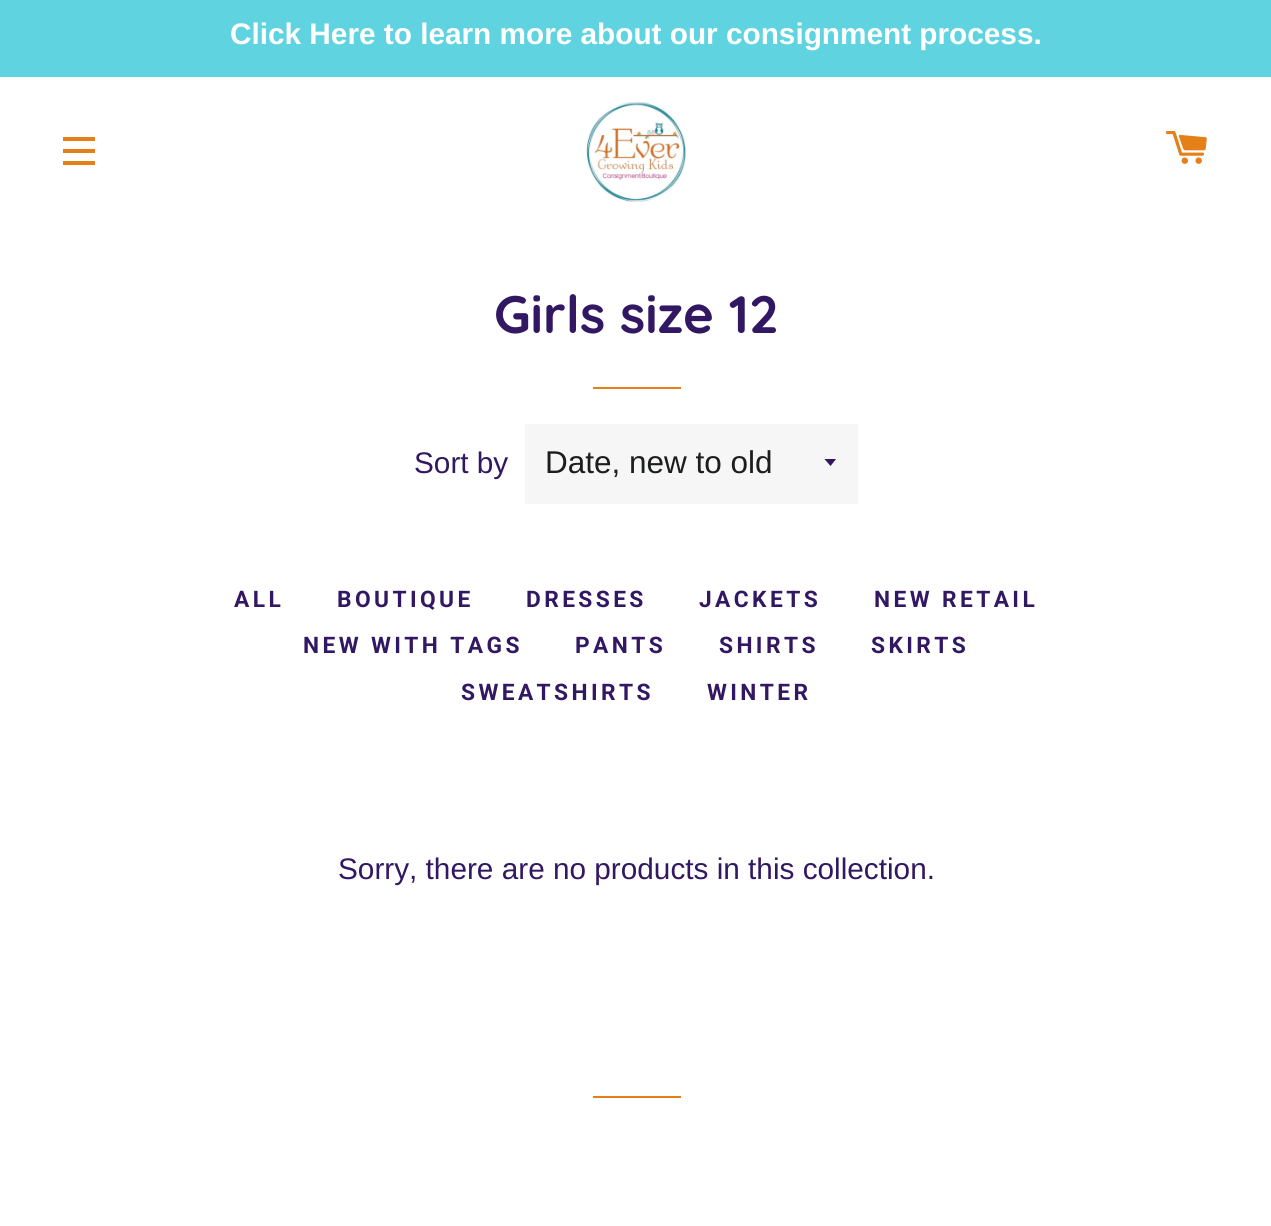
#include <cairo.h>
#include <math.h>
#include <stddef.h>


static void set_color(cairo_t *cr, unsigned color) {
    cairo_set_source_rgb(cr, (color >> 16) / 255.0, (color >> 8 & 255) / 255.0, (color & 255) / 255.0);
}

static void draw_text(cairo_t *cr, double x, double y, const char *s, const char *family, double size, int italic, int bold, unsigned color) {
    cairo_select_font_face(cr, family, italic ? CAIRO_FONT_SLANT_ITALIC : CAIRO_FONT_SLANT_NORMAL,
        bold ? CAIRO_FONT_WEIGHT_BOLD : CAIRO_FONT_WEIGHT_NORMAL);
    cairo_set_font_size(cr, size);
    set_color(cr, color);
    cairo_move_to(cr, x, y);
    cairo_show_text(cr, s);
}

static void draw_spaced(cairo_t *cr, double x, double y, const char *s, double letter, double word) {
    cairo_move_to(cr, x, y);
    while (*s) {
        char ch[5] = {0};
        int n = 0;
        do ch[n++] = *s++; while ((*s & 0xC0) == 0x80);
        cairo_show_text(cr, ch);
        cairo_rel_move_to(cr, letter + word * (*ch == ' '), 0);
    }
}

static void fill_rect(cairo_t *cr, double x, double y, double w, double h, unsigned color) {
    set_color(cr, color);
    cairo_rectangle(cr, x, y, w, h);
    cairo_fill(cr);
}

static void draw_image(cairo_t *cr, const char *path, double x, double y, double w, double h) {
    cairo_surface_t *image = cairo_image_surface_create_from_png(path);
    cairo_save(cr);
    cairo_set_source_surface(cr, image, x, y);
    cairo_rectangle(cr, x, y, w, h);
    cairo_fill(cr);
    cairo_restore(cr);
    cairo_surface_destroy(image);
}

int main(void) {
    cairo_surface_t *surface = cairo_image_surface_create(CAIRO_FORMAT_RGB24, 1271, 1226);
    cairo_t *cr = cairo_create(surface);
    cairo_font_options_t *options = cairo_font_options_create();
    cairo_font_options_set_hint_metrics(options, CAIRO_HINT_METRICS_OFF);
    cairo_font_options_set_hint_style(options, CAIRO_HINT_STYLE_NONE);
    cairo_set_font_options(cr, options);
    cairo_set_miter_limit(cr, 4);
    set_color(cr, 0xFFFFFF);
    cairo_paint(cr);
    fill_rect(cr, 0, 0, 1271, 77, 0x5FD4E0);
    draw_text(cr, 230, 44, "Click Here to learn more about our consignment process.", "Liberation Sans", 29.75, 0, 1, 0xFFFFFF);
    fill_rect(cr, 63, 137, 32, 4, 0xE58019);
    fill_rect(cr, 63, 149, 32, 4, 0xE58019);
    fill_rect(cr, 63, 161, 32, 4, 0xE58019);
    draw_image(cr, "assets/img1.png", 586, 101, 101, 101);
    draw_image(cr, "assets/img2.png", 1165, 131, 42, 33);
    draw_text(cr, 494, 333, "Girls size 12", "Quicksand", 52.5, 0, 1, 0x321863);
    fill_rect(cr, 593, 387, 88, 2, 0xE58019);
    draw_text(cr, 414, 473, "Sort by", "Liberation Sans", 29.75, 0, 0, 0x321863);
    fill_rect(cr, 525, 424, 333, 80, 0xF6F6F6);
    cairo_save(cr);
    cairo_rectangle(cr, 824, 459, 14, 8);
    cairo_clip(cr);
    set_color(cr, 0x321863);
    cairo_new_path(cr);
    cairo_move_to(cr, 824, 458.5);
    cairo_line_to(cr, 830.5, 466);
    cairo_line_to(cr, 836.5, 458.5);
    cairo_close_path(cr);
    cairo_fill(cr);
    cairo_restore(cr);
    draw_text(cr, 545, 473, "Date, new to old", "Liberation Sans", 31.5, 0, 0, 0x1C1D1D);
    cairo_select_font_face(cr, "Roboto", CAIRO_FONT_SLANT_NORMAL, CAIRO_FONT_WEIGHT_BOLD);
    cairo_set_font_size(cr, 22.75);
    set_color(cr, 0x321863);
    draw_spaced(cr, 234, 607, "ALL", 3.4, 0);
    draw_spaced(cr, 337, 607, "BOUTIQUE", 3.4, 0);
    draw_spaced(cr, 526, 607, "DRESSES", 3.4, 0);
    draw_spaced(cr, 699, 607, "JACKETS", 3.4, 0);
    draw_spaced(cr, 874, 607, "NEW RETAIL", 3.4, 0);
    draw_spaced(cr, 303, 653, "NEW WITH TAGS", 3.4, 0);
    draw_spaced(cr, 575, 653, "PANTS", 3.4, 0);
    draw_spaced(cr, 719, 653, "SHIRTS", 3.4, 0);
    draw_spaced(cr, 871, 653, "SKIRTS", 3.4, 0);
    draw_spaced(cr, 461, 700, "SWEATSHIRTS", 3.4, 0);
    draw_spaced(cr, 707, 700, "WINTER", 3.4, 0);
    draw_text(cr, 338, 879, "Sorry, there are no products in this collection.", "Liberation Sans", 29.75, 0, 0, 0x321863);
    fill_rect(cr, 593, 1096, 88, 2, 0xE58019);
    cairo_surface_write_to_png(surface, "output.png");
    cairo_font_options_destroy(options);
    cairo_destroy(cr);
    cairo_surface_destroy(surface);
    return 0;
}
